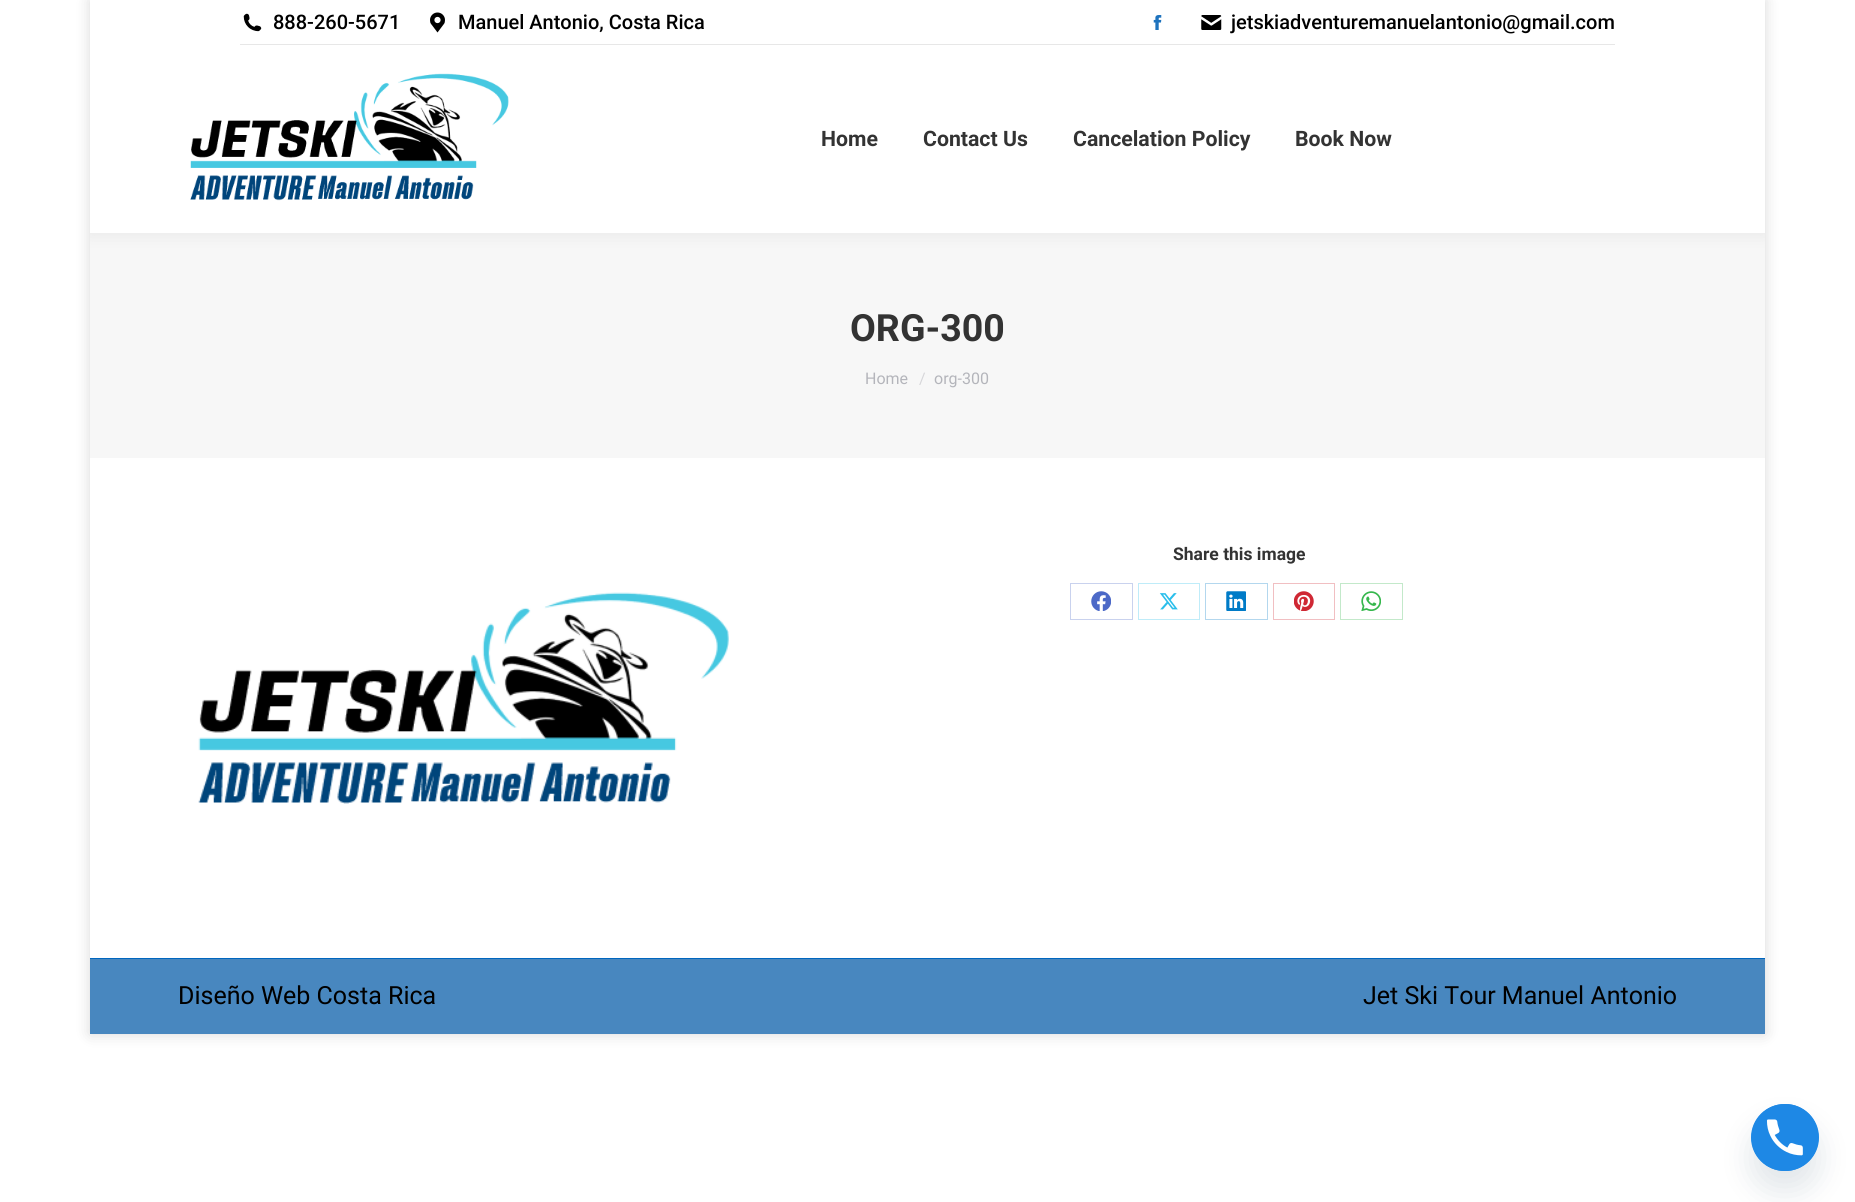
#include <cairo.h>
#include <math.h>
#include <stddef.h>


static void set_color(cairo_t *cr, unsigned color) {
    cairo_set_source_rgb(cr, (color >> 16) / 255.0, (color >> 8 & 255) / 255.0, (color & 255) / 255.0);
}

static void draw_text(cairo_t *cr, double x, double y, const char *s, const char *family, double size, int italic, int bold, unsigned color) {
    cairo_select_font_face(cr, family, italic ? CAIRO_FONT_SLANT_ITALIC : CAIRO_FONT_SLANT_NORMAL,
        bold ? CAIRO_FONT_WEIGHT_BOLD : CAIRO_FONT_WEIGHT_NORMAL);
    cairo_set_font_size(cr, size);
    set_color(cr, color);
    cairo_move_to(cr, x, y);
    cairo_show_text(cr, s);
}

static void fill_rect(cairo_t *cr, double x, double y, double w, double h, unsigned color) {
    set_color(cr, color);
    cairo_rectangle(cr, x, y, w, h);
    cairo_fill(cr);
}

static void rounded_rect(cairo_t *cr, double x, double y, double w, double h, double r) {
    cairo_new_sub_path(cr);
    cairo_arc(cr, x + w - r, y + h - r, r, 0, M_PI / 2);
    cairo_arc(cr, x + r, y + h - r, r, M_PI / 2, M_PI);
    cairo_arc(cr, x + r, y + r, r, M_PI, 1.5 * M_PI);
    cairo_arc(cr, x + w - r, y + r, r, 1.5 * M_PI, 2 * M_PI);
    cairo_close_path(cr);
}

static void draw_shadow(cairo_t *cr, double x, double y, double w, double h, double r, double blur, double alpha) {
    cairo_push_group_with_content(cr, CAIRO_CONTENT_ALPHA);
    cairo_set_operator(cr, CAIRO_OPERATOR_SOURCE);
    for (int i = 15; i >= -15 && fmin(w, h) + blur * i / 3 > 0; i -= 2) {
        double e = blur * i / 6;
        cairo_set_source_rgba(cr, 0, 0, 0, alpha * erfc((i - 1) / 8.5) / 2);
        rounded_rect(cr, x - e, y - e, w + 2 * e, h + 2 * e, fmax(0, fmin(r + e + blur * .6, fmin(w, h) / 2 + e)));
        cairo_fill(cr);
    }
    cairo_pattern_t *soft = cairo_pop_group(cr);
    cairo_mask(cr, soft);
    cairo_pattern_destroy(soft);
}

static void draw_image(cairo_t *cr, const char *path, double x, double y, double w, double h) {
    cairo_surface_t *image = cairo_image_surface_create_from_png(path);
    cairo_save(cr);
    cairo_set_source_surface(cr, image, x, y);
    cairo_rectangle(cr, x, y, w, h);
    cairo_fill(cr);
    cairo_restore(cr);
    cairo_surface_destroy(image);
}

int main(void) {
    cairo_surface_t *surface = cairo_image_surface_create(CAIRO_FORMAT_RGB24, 1855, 1202);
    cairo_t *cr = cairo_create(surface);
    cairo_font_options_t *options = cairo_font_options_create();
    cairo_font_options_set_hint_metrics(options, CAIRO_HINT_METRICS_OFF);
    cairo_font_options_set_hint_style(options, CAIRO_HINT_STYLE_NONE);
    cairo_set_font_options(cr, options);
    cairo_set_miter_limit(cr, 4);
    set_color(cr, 0xFFFFFF);
    cairo_paint(cr);
    set_color(cr, 0x000000);
    draw_shadow(cr, 90, 0, 1675, 1034, 0, 7.5, 0.15);
    fill_rect(cr, 90, 458, 1675, 500, 0xFFFFFF);
    fill_rect(cr, 90, 233, 1675, 225, 0xF7F7F7);
    cairo_save(cr);
    cairo_rectangle(cr, 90, 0, 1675, 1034);
    cairo_clip(cr);
    set_color(cr, 0x000000);
    draw_shadow(cr, 89, -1, 1677, 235, 0, 9.5, 0.07);
    cairo_restore(cr);
    fill_rect(cr, 90, 0, 1675, 233, 0xFFFFFF);
    draw_image(cr, "assets/img1.png", 243, 13, 19, 19);
    draw_text(cr, 273, 29, "888-260-5671", "Roboto Medium", 20, 0, 0, 0x000000);
    draw_image(cr, "assets/img2.png", 430, 12, 15, 21);
    draw_text(cr, 458, 29, "Manuel Antonio, Costa Rica", "Roboto Medium", 20, 0, 0, 0x000000);
    draw_image(cr, "assets/img3.png", 1153, 15, 9, 15);
    draw_image(cr, "assets/img4.png", 1201, 15, 21, 15);
    draw_text(cr, 1231, 29, "jetskiadventuremanuelantonio@gmail.com", "Roboto Medium", 20, 0, 0, 0x000000);
    fill_rect(cr, 240, 44, 1375, 1, 0xE7E7E7);
    draw_image(cr, "assets/img5.png", 190, 73, 319, 128);
    draw_text(cr, 821, 146, "Home", "Roboto", 21.25, 0, 1, 0x333333);
    draw_text(cr, 923, 146, "Contact Us", "Roboto", 21.25, 0, 1, 0x333333);
    draw_text(cr, 1073, 146, "Cancelation Policy", "Roboto", 21.25, 0, 1, 0x333333);
    draw_text(cr, 1295, 146, "Book Now", "Roboto", 21.25, 0, 1, 0x333333);
    draw_text(cr, 850, 341, "ORG-300", "Roboto", 37.5, 0, 1, 0x333333);
    draw_text(cr, 865, 384, "Home", "Roboto", 16, 0, 0, 0xB4B5BB);
    draw_text(cr, 919, 384, "/", "Roboto", 16, 0, 0, 0xD6D6D9);
    draw_text(cr, 934, 384, "org-300", "Roboto", 16, 0, 0, 0xB4B5BB);
    draw_text(cr, 1173, 560, "Share this image", "Roboto", 17.5, 0, 1, 0x333333);
    cairo_rectangle(cr, 1070.5, 583.5, 62, 36);
    set_color(cr, 0xC9D2EE);
    cairo_set_line_width(cr, 1);
    cairo_stroke(cr);
    draw_image(cr, "assets/img6.png", 1091, 591, 20, 20);
    cairo_rectangle(cr, 1138.5, 583.5, 61, 36);
    set_color(cr, 0xBFECF9);
    cairo_stroke(cr);
    draw_image(cr, "assets/img7.png", 1159, 593, 19, 17);
    cairo_rectangle(cr, 1205.5, 583.5, 62, 36);
    set_color(cr, 0xB3D7EE);
    cairo_stroke(cr);
    draw_image(cr, "assets/img8.png", 1226, 591, 20, 20);
    cairo_rectangle(cr, 1273.5, 583.5, 61, 36);
    set_color(cr, 0xF1BFC2);
    cairo_stroke(cr);
    draw_image(cr, "assets/img9.png", 1294, 591, 20, 20);
    cairo_rectangle(cr, 1340.5, 583.5, 62, 36);
    set_color(cr, 0xC3E9CA);
    cairo_stroke(cr);
    draw_image(cr, "assets/img10.png", 1361, 591, 20, 20);
    draw_image(cr, "assets/img11.png", 198, 592, 531, 212);
    fill_rect(cr, 90, 959, 1675, 75, 0x4887BF);
    fill_rect(cr, 90, 958, 1675, 1, 0x0066BF);
    draw_text(cr, 178, 1004, "Diseño Web Costa Rica", "Roboto", 25, 0, 0, 0x000000);
    draw_text(cr, 1363, 1004, "Jet Ski Tour Manuel Antonio", "Roboto", 25, 0, 0, 0x000000);
    set_color(cr, 0x49687E);
    draw_shadow(cr, 1751, 1124, 68, 67, 33.5, 15, 0.16);
    set_color(cr, 0x1E88E5);
    rounded_rect(cr, 1751, 1104, 68, 67, 33.5);
    cairo_fill(cr);
    draw_image(cr, "assets/img12.png", 1751, 1104, 68, 67);
    cairo_surface_write_to_png(surface, "output.png");
    cairo_font_options_destroy(options);
    cairo_destroy(cr);
    cairo_surface_destroy(surface);
    return 0;
}
